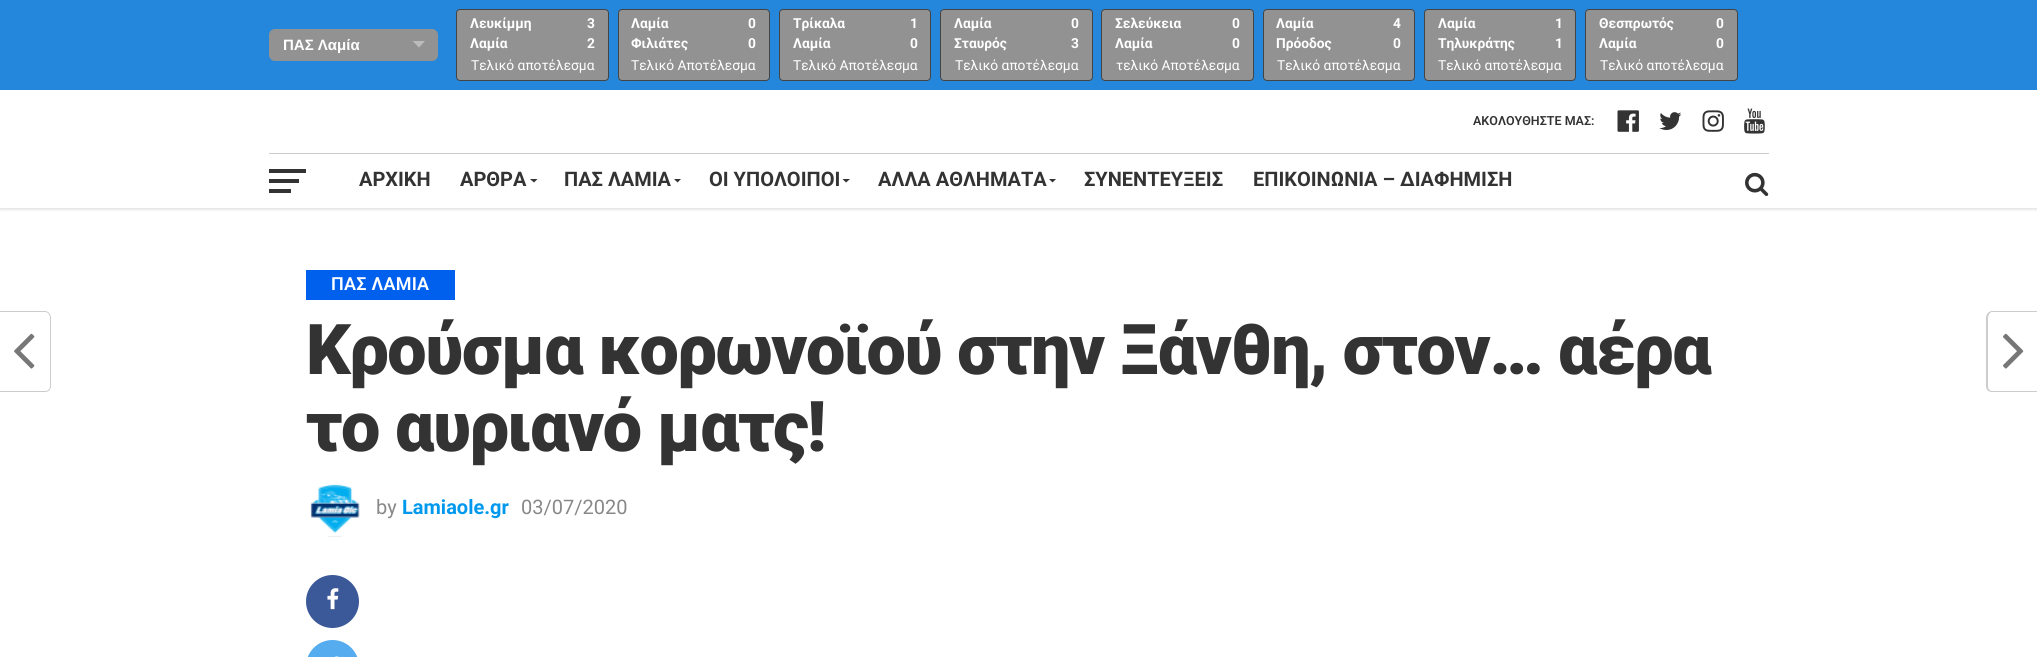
#include <cairo.h>
#include <math.h>
#include <stddef.h>


static void set_color(cairo_t *cr, unsigned color) {
    cairo_set_source_rgb(cr, (color >> 16) / 255.0, (color >> 8 & 255) / 255.0, (color & 255) / 255.0);
}

static void draw_text(cairo_t *cr, double x, double y, const char *s, const char *family, double size, int italic, int bold, unsigned color) {
    cairo_select_font_face(cr, family, italic ? CAIRO_FONT_SLANT_ITALIC : CAIRO_FONT_SLANT_NORMAL,
        bold ? CAIRO_FONT_WEIGHT_BOLD : CAIRO_FONT_WEIGHT_NORMAL);
    cairo_set_font_size(cr, size);
    set_color(cr, color);
    cairo_move_to(cr, x, y);
    cairo_show_text(cr, s);
}

static void draw_spaced(cairo_t *cr, double x, double y, const char *s, double letter, double word) {
    cairo_move_to(cr, x, y);
    while (*s) {
        char ch[5] = {0};
        int n = 0;
        do ch[n++] = *s++; while ((*s & 0xC0) == 0x80);
        cairo_show_text(cr, ch);
        cairo_rel_move_to(cr, letter + word * (*ch == ' '), 0);
    }
}

static void fill_rect(cairo_t *cr, double x, double y, double w, double h, unsigned color) {
    set_color(cr, color);
    cairo_rectangle(cr, x, y, w, h);
    cairo_fill(cr);
}

static void rounded_rect(cairo_t *cr, double x, double y, double w, double h, double r) {
    cairo_new_sub_path(cr);
    cairo_arc(cr, x + w - r, y + h - r, r, 0, M_PI / 2);
    cairo_arc(cr, x + r, y + h - r, r, M_PI / 2, M_PI);
    cairo_arc(cr, x + r, y + r, r, M_PI, 1.5 * M_PI);
    cairo_arc(cr, x + w - r, y + r, r, 1.5 * M_PI, 2 * M_PI);
    cairo_close_path(cr);
}

static void draw_shadow(cairo_t *cr, double x, double y, double w, double h, double r, double blur, double alpha) {
    cairo_push_group_with_content(cr, CAIRO_CONTENT_ALPHA);
    cairo_set_operator(cr, CAIRO_OPERATOR_SOURCE);
    for (int i = 15; i >= -15 && fmin(w, h) + blur * i / 3 > 0; i -= 2) {
        double e = blur * i / 6;
        cairo_set_source_rgba(cr, 0, 0, 0, alpha * erfc((i - 1) / 8.5) / 2);
        rounded_rect(cr, x - e, y - e, w + 2 * e, h + 2 * e, fmax(0, fmin(r + e + blur * .6, fmin(w, h) / 2 + e)));
        cairo_fill(cr);
    }
    cairo_pattern_t *soft = cairo_pop_group(cr);
    cairo_mask(cr, soft);
    cairo_pattern_destroy(soft);
}

static void draw_image(cairo_t *cr, const char *path, double x, double y, double w, double h) {
    cairo_surface_t *image = cairo_image_surface_create_from_png(path);
    cairo_save(cr);
    cairo_set_source_surface(cr, image, x, y);
    cairo_rectangle(cr, x, y, w, h);
    cairo_fill(cr);
    cairo_restore(cr);
    cairo_surface_destroy(image);
}

int main(void) {
    cairo_surface_t *surface = cairo_image_surface_create(CAIRO_FORMAT_RGB24, 2037, 657);
    cairo_t *cr = cairo_create(surface);
    cairo_font_options_t *options = cairo_font_options_create();
    cairo_font_options_set_hint_metrics(options, CAIRO_HINT_METRICS_OFF);
    cairo_font_options_set_hint_style(options, CAIRO_HINT_STYLE_NONE);
    cairo_set_font_options(cr, options);
    cairo_set_miter_limit(cr, 4);
    set_color(cr, 0xFFFFFF);
    cairo_paint(cr);
    set_color(cr, 0x000000);
    draw_shadow(cr, 0, 3, 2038, 207, 0, 1, 0.1);
    fill_rect(cr, 0, 0, 2037, 90, 0x2487DB);
    set_color(cr, 0x929292);
    rounded_rect(cr, 269, 29, 169, 32, 6);
    cairo_fill(cr);
    draw_text(cr, 283, 50, "ΠΑΣ Λαμία", "Liberation Sans", 15, 0, 1, 0xFFFFFF);
    set_color(cr, 0xBBBBBB);
    cairo_new_path(cr);
    cairo_move_to(cr, 412.5, 41);
    cairo_line_to(cr, 425, 41);
    cairo_line_to(cr, 419, 47.5);
    cairo_close_path(cr);
    cairo_fill(cr);
    set_color(cr, 0x929292);
    rounded_rect(cr, 456.5, 9.5, 152, 71, 3.5);
    cairo_fill_preserve(cr);
    set_color(cr, 0x444444);
    cairo_set_line_width(cr, 1);
    cairo_stroke(cr);
    draw_text(cr, 470, 28, "Λευκίμμη", "Roboto", 13.75, 0, 1, 0xFFFFFF);
    draw_text(cr, 470, 48, "Λαμία", "Roboto", 13.75, 0, 1, 0xFFFFFF);
    draw_text(cr, 587, 28, "3", "Roboto", 13.75, 0, 1, 0xFFFFFF);
    draw_text(cr, 587, 48, "2", "Roboto", 13.75, 0, 1, 0xFFFFFF);
    draw_text(cr, 471, 70, "Τελικό αποτέλεσμα", "Roboto", 13.75, 0, 0, 0xFFFFFF);
    set_color(cr, 0x929292);
    rounded_rect(cr, 618.5, 9.5, 151, 71, 3.5);
    cairo_fill_preserve(cr);
    set_color(cr, 0x444444);
    cairo_stroke(cr);
    draw_text(cr, 631, 28, "Λαμία", "Roboto", 13.75, 0, 1, 0xFFFFFF);
    draw_text(cr, 631, 48, "Φιλιάτες", "Roboto", 13.75, 0, 1, 0xFFFFFF);
    draw_text(cr, 748, 28, "0", "Roboto", 13.75, 0, 1, 0xFFFFFF);
    draw_text(cr, 748, 48, "0", "Roboto", 13.75, 0, 1, 0xFFFFFF);
    draw_text(cr, 631, 70, "Τελικό Αποτέλεσμα", "Roboto", 13.75, 0, 0, 0xFFFFFF);
    set_color(cr, 0x929292);
    rounded_rect(cr, 779.5, 9.5, 151, 71, 3.5);
    cairo_fill_preserve(cr);
    set_color(cr, 0x444444);
    cairo_stroke(cr);
    draw_text(cr, 793, 28, "Τρίκαλα", "Roboto", 13.75, 0, 1, 0xFFFFFF);
    draw_text(cr, 793, 48, "Λαμία", "Roboto", 13.75, 0, 1, 0xFFFFFF);
    draw_text(cr, 910, 28, "1", "Roboto", 13.75, 0, 1, 0xFFFFFF);
    draw_text(cr, 910, 48, "0", "Roboto", 13.75, 0, 1, 0xFFFFFF);
    draw_text(cr, 793, 70, "Τελικό Αποτέλεσμα", "Roboto", 13.75, 0, 0, 0xFFFFFF);
    set_color(cr, 0x929292);
    rounded_rect(cr, 940.5, 9.5, 152, 71, 3.5);
    cairo_fill_preserve(cr);
    set_color(cr, 0x444444);
    cairo_stroke(cr);
    draw_text(cr, 954, 28, "Λαμία", "Roboto", 13.75, 0, 1, 0xFFFFFF);
    draw_text(cr, 954, 48, "Σταυρός", "Roboto", 13.75, 0, 1, 0xFFFFFF);
    draw_text(cr, 1071, 28, "0", "Roboto", 13.75, 0, 1, 0xFFFFFF);
    draw_text(cr, 1071, 48, "3", "Roboto", 13.75, 0, 1, 0xFFFFFF);
    draw_text(cr, 955, 70, "Τελικό αποτέλεσμα", "Roboto", 13.75, 0, 0, 0xFFFFFF);
    set_color(cr, 0x929292);
    rounded_rect(cr, 1101.5, 9.5, 152, 71, 3.5);
    cairo_fill_preserve(cr);
    set_color(cr, 0x444444);
    cairo_stroke(cr);
    draw_text(cr, 1115, 28, "Σελεύκεια", "Roboto", 13.75, 0, 1, 0xFFFFFF);
    draw_text(cr, 1115, 48, "Λαμία", "Roboto", 13.75, 0, 1, 0xFFFFFF);
    draw_text(cr, 1232, 28, "0", "Roboto", 13.75, 0, 1, 0xFFFFFF);
    draw_text(cr, 1232, 48, "0", "Roboto", 13.75, 0, 1, 0xFFFFFF);
    draw_text(cr, 1116, 70, "τελικό Αποτέλεσμα", "Roboto", 13.75, 0, 0, 0xFFFFFF);
    set_color(cr, 0x929292);
    rounded_rect(cr, 1263.5, 9.5, 151, 71, 3.5);
    cairo_fill_preserve(cr);
    set_color(cr, 0x444444);
    cairo_stroke(cr);
    draw_text(cr, 1276, 28, "Λαμία", "Roboto", 13.75, 0, 1, 0xFFFFFF);
    draw_text(cr, 1276, 48, "Πρόοδος", "Roboto", 13.75, 0, 1, 0xFFFFFF);
    draw_text(cr, 1393, 28, "4", "Roboto", 13.75, 0, 1, 0xFFFFFF);
    draw_text(cr, 1393, 48, "0", "Roboto", 13.75, 0, 1, 0xFFFFFF);
    draw_text(cr, 1277, 70, "Τελικό αποτέλεσμα", "Roboto", 13.75, 0, 0, 0xFFFFFF);
    set_color(cr, 0x929292);
    rounded_rect(cr, 1424.5, 9.5, 151, 71, 3.5);
    cairo_fill_preserve(cr);
    set_color(cr, 0x444444);
    cairo_stroke(cr);
    draw_text(cr, 1438, 28, "Λαμία", "Roboto", 13.75, 0, 1, 0xFFFFFF);
    draw_text(cr, 1438, 48, "Τηλυκράτης", "Roboto", 13.75, 0, 1, 0xFFFFFF);
    draw_text(cr, 1555, 28, "1", "Roboto", 13.75, 0, 1, 0xFFFFFF);
    draw_text(cr, 1555, 48, "1", "Roboto", 13.75, 0, 1, 0xFFFFFF);
    draw_text(cr, 1438, 70, "Τελικό αποτέλεσμα", "Roboto", 13.75, 0, 0, 0xFFFFFF);
    set_color(cr, 0x929292);
    rounded_rect(cr, 1585.5, 9.5, 152, 71, 3.5);
    cairo_fill_preserve(cr);
    set_color(cr, 0x444444);
    cairo_stroke(cr);
    draw_text(cr, 1599, 28, "Θεσπρωτός", "Roboto", 13.75, 0, 1, 0xFFFFFF);
    draw_text(cr, 1599, 48, "Λαμία", "Roboto", 13.75, 0, 1, 0xFFFFFF);
    draw_text(cr, 1716, 28, "0", "Roboto", 13.75, 0, 1, 0xFFFFFF);
    draw_text(cr, 1716, 48, "0", "Roboto", 13.75, 0, 1, 0xFFFFFF);
    draw_text(cr, 1600, 70, "Τελικό αποτέλεσμα", "Roboto", 13.75, 0, 0, 0xFFFFFF);
    fill_rect(cr, 0, 90, 2037, 118, 0xFFFFFF);
    fill_rect(cr, 269, 153, 1500, 1, 0xCCCCCC);
    draw_text(cr, 1473, 125, "ΑΚΟΛΟΥΘΗΣΤΕ ΜΑΣ:", "Roboto SemiBold", 12.5, 0, 0, 0x333333);
    draw_image(cr, "assets/img1.png", 1617, 110, 22, 22);
    draw_image(cr, "assets/img2.png", 1659, 112, 23, 18);
    draw_image(cr, "assets/img3.png", 1702, 110, 22, 22);
    draw_image(cr, "assets/img4.png", 1744, 108, 21, 26);
    draw_image(cr, "assets/img5.png", 1745, 172, 24, 25);
    fill_rect(cr, 269, 169, 37, 4, 0x333333);
    fill_rect(cr, 269, 179, 30, 4, 0x333333);
    fill_rect(cr, 269, 189, 22, 4, 0x333333);
    draw_text(cr, 359, 186, "ΑΡΧΙΚΗ", "Roboto", 20, 0, 1, 0x333333);
    draw_text(cr, 460, 186, "ΑΡΘΡΑ", "Roboto", 20, 0, 1, 0x333333);
    cairo_new_path(cr);
    cairo_move_to(cr, 530, 179);
    cairo_line_to(cr, 537.5, 179);
    cairo_line_to(cr, 534, 182.5);
    cairo_close_path(cr);
    cairo_fill(cr);
    draw_text(cr, 564, 186, "ΠΑΣ ΛΑΜΙΑ", "Roboto", 20, 0, 1, 0x333333);
    cairo_new_path(cr);
    cairo_move_to(cr, 674, 179);
    cairo_line_to(cr, 681, 179);
    cairo_line_to(cr, 677.5, 182.5);
    cairo_close_path(cr);
    cairo_fill(cr);
    draw_text(cr, 709, 186, "ΟΙ ΥΠΟΛΟΙΠΟΙ", "Roboto", 20, 0, 1, 0x333333);
    cairo_new_path(cr);
    cairo_move_to(cr, 842.5, 179);
    cairo_line_to(cr, 850, 179);
    cairo_line_to(cr, 846, 182.5);
    cairo_close_path(cr);
    cairo_fill(cr);
    draw_text(cr, 878, 186, "ΑΛΛΑ ΑΘΛΗΜΑΤΑ", "Roboto", 20, 0, 1, 0x333333);
    cairo_new_path(cr);
    cairo_move_to(cr, 1049, 179);
    cairo_line_to(cr, 1056, 179);
    cairo_line_to(cr, 1052.5, 182.5);
    cairo_close_path(cr);
    cairo_fill(cr);
    draw_text(cr, 1084, 186, "ΣΥΝΕΝΤΕΥΞΕΙΣ", "Roboto", 20, 0, 1, 0x333333);
    draw_text(cr, 1253, 186, "ΕΠΙΚΟΙΝΩΝΙΑ – ΔΙΑΦΗΜΙΣΗ", "Roboto", 20, 0, 1, 0x333333);
    fill_rect(cr, 306, 270, 149, 30, 0x0060EE);
    cairo_select_font_face(cr, "Roboto SemiBold", CAIRO_FONT_SLANT_NORMAL, CAIRO_FONT_WEIGHT_NORMAL);
    cairo_set_font_size(cr, 18);
    set_color(cr, 0xFFFFFF);
    draw_spaced(cr, 331, 290, "ΠΑΣ ΛΑΜΙΑ", 0.25, 0);
    cairo_select_font_face(cr, "Roboto Black", CAIRO_FONT_SLANT_NORMAL, CAIRO_FONT_WEIGHT_NORMAL);
    cairo_set_font_size(cr, 70);
    set_color(cr, 0x333333);
    draw_spaced(cr, 306, 374, "Κρούσμα κορωνοϊού στην Ξάνθη, στον… αέρα", -1.4, 0);
    draw_spaced(cr, 306, 451, "το αυριανό ματς!", -1.4, 0);
    draw_image(cr, "assets/img6.png", 310, 484, 50, 53);
    draw_text(cr, 376, 514, "by", "Roboto", 20, 0, 0, 0x888888);
    draw_text(cr, 402, 514, "Lamiaole.gr", "Roboto", 20, 0, 1, 0x0099EE);
    draw_text(cr, 521, 514, "03/07/2020", "Roboto", 20, 0, 0, 0x888888);
    set_color(cr, 0xCCCCCC);
    cairo_set_fill_rule(cr, CAIRO_FILL_RULE_EVEN_ODD);
    cairo_new_path(cr);
    cairo_move_to(cr, 0, 311);
    cairo_line_to(cr, 45, 311);
    cairo_curve_to(cr, 48, 311, 51, 314, 51, 318);
    cairo_line_to(cr, 51, 386);
    cairo_curve_to(cr, 51, 390, 48, 392, 45, 392);
    cairo_line_to(cr, 0, 392);
    cairo_close_path(cr);
    cairo_move_to(cr, 0, 312);
    cairo_line_to(cr, 45, 312);
    cairo_curve_to(cr, 48, 312, 50, 315, 50, 318);
    cairo_line_to(cr, 50, 386);
    cairo_curve_to(cr, 50, 389, 48, 391, 45, 391);
    cairo_line_to(cr, 0, 391);
    cairo_close_path(cr);
    cairo_fill(cr);
    draw_image(cr, "assets/img7.png", 14, 333, 21, 36);
    cairo_new_path(cr);
    cairo_move_to(cr, 1992, 311);
    cairo_line_to(cr, 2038, 311);
    cairo_line_to(cr, 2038, 392);
    cairo_line_to(cr, 1992, 392);
    cairo_curve_to(cr, 1989, 392, 1986, 390, 1986, 386);
    cairo_line_to(cr, 1986, 318);
    cairo_curve_to(cr, 1986, 314, 1989, 311, 1992, 311);
    cairo_close_path(cr);
    cairo_move_to(cr, 1992, 312);
    cairo_line_to(cr, 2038, 312);
    cairo_line_to(cr, 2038, 391);
    cairo_line_to(cr, 1992, 391);
    cairo_curve_to(cr, 1990, 391, 1988, 389, 1988, 386);
    cairo_line_to(cr, 1988, 318);
    cairo_curve_to(cr, 1988, 315, 1990, 312, 1992, 312);
    cairo_close_path(cr);
    cairo_fill(cr);
    draw_image(cr, "assets/img8.png", 2003, 333, 21, 36);
    set_color(cr, 0x3B5998);
    cairo_arc(cr, 332.5, 601.5, 26.5, 0, 2 * M_PI);
    cairo_fill(cr);
    draw_image(cr, "assets/img9.png", 327, 588, 12, 22);
    set_color(cr, 0x55ACEE);
    rounded_rect(cr, 306, 640, 53, 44, 26.5);
    cairo_fill(cr);
    draw_image(cr, "assets/img10.png", 335, 656, 8, 1);
    cairo_surface_write_to_png(surface, "output.png");
    cairo_font_options_destroy(options);
    cairo_destroy(cr);
    cairo_surface_destroy(surface);
    return 0;
}
